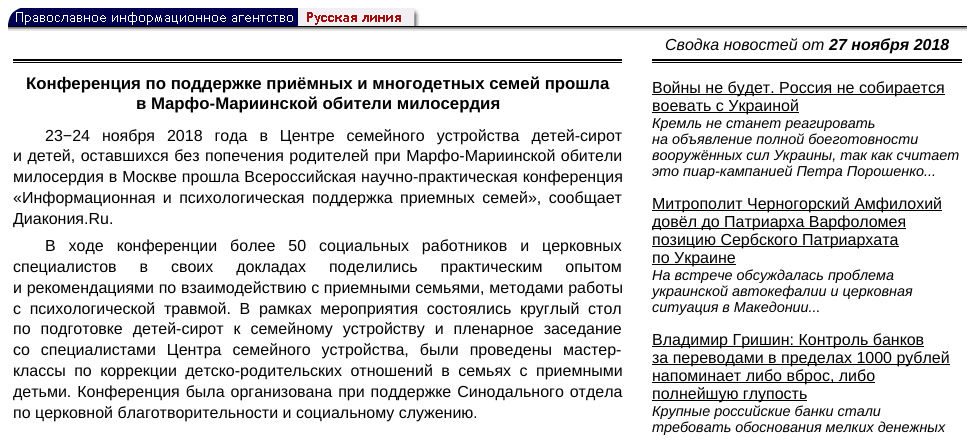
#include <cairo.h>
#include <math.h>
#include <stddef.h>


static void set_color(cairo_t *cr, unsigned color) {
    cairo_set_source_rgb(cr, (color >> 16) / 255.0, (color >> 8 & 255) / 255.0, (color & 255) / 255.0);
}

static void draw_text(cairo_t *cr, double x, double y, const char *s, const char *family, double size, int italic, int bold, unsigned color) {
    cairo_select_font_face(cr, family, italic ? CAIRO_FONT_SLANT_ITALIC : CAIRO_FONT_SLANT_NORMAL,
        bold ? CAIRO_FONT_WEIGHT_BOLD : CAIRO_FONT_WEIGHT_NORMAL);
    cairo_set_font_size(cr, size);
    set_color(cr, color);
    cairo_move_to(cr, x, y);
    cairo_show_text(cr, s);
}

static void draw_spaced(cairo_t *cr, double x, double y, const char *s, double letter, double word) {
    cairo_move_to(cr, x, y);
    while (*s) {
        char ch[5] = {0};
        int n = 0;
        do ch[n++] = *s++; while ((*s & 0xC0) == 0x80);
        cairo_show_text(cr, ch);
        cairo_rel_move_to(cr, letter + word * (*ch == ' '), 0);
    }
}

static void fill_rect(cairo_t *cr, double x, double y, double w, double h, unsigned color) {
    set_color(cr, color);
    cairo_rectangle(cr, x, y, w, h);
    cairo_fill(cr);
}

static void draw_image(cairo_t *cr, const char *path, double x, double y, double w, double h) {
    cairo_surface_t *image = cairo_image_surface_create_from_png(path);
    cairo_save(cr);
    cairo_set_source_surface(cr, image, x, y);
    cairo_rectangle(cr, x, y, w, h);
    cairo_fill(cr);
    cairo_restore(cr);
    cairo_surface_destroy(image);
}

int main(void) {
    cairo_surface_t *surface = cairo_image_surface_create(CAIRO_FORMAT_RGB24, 975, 440);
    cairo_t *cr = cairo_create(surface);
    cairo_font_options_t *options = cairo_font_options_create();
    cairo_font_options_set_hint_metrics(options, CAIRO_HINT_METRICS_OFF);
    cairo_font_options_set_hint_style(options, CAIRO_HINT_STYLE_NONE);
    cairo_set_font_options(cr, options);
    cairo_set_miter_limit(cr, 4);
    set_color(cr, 0xFFFFFF);
    cairo_paint(cr);
    draw_image(cr, "assets/img1.png", 8, 8, 412, 18);
    fill_rect(cr, 8, 26, 959, 1, 0x000000);
    fill_rect(cr, 8, 27, 959, 1, 0x808080);
    fill_rect(cr, 8, 28, 959, 1, 0xA2A2A2);
    fill_rect(cr, 8, 29, 959, 1, 0xDDDDDD);
    fill_rect(cr, 8, 30, 959, 1, 0xE8E8E8);
    draw_text(cr, 665, 50, "Сводка новостей от", "Liberation Sans", 16, 1, 0, 0x000000);
    draw_text(cr, 829, 50, "27 ноября 2018", "Liberation Sans", 16, 1, 1, 0x000000);
    fill_rect(cr, 13, 59, 609, 2, 0x000000);
    fill_rect(cr, 13, 62, 609, 1, 0x000000);
    draw_text(cr, 26, 89, "Конференция по поддержке приёмных и многодетных семей прошла", "Liberation Sans", 16.8, 0, 1, 0x000000);
    draw_text(cr, 136, 109, "в Марфо-Мариинской обители милосердия", "Liberation Sans", 16.8, 0, 1, 0x000000);
    cairo_select_font_face(cr, "Liberation Sans", CAIRO_FONT_SLANT_NORMAL, CAIRO_FONT_WEIGHT_NORMAL);
    cairo_set_font_size(cr, 16);
    draw_spaced(cr, 45, 141, "23−24 ноября 2018 года в Центре семейного устройства детей-сирот", 0, 7.5);
    draw_spaced(cr, 13, 161, "и детей, оставшихся без попечения родителей при Марфо-Мариинской обители", 0, 1);
    draw_spaced(cr, 13, 182, "милосердия в Москве прошла Всероссийская научно-практическая конференция", 0, 0.5);
    draw_spaced(cr, 13, 203, "«Информационная и психологическая поддержка приемных семей», сообщает", 0, 3);
    draw_text(cr, 13, 224, "Диакония.Ru.", "Liberation Sans", 16, 0, 0, 0x000000);
    draw_spaced(cr, 45, 251, "В ходе конференции более 50 социальных работников и церковных", 0, 8.5);
    draw_spaced(cr, 13, 272, "специалистов в своих докладах поделились практическим опытом", 0, 18.5);
    draw_spaced(cr, 13, 293, "и рекомендациями по взаимодействию с приемными семьями, методами работы", 0, 0.25);
    draw_spaced(cr, 13, 314, "с психологической травмой. В рамках мероприятия состоялись круглый стол", 0, 4.25);
    draw_spaced(cr, 13, 334, "по подготовке детей-сирот к семейному устройству и пленарное заседание", 0, 5.5);
    draw_spaced(cr, 13, 355, "со специалистами Центра семейного устройства, были проведены мастер-", 0, 6.5);
    draw_spaced(cr, 13, 376, "классы по коррекции детско-родительских отношений в семьях с приемными", 0, 4);
    draw_spaced(cr, 13, 397, "детьми. Конференция была организована при поддержке Синодального отдела", 0, 1.5);
    draw_text(cr, 13, 418, "по церковной благотворительности и социальному служению.", "Liberation Sans", 16, 0, 0, 0x000000);
    fill_rect(cr, 652, 59, 310, 2, 0x000000);
    fill_rect(cr, 652, 62, 310, 1, 0x000000);
    fill_rect(cr, 652, 94, 293, 1, 0x000000);
    draw_text(cr, 652, 93, "Войны не будет. Россия не собирается", "Liberation Sans", 16, 0, 0, 0x000000);
    fill_rect(cr, 652, 112, 147, 1, 0x000000);
    draw_text(cr, 652, 111, "воевать с Украиной", "Liberation Sans", 16, 0, 0, 0x000000);
    draw_text(cr, 652, 128, "Кремль не станет реагировать", "Liberation Sans", 14.4, 1, 0, 0x000000);
    draw_text(cr, 652, 144, "на объявление полной боеготовности", "Liberation Sans", 14.4, 1, 0, 0x000000);
    draw_text(cr, 652, 160, "вооружённых сил Украины, так как считает", "Liberation Sans", 14.4, 1, 0, 0x000000);
    draw_text(cr, 652, 176, "это пиар-кампанией Петра Порошенко...", "Liberation Sans", 14.4, 1, 0, 0x000000);
    fill_rect(cr, 652, 210, 290, 1, 0x000000);
    draw_text(cr, 652, 209, "Митрополит Черногорский Амфилохий", "Liberation Sans", 16, 0, 0, 0x000000);
    fill_rect(cr, 652, 228, 254, 1, 0x000000);
    draw_text(cr, 652, 227, "довёл до Патриарха Варфоломея", "Liberation Sans", 16, 0, 0, 0x000000);
    fill_rect(cr, 652, 246, 247, 1, 0x000000);
    draw_text(cr, 652, 245, "позицию Сербского Патриархата", "Liberation Sans", 16, 0, 0, 0x000000);
    fill_rect(cr, 652, 264, 84, 1, 0x000000);
    draw_text(cr, 652, 263, "по Украине", "Liberation Sans", 16, 0, 0, 0x000000);
    draw_text(cr, 652, 280, "На встрече обсуждалась проблема", "Liberation Sans", 14.4, 1, 0, 0x000000);
    draw_text(cr, 652, 296, "украинской автокефалии и церковная", "Liberation Sans", 14.4, 1, 0, 0x000000);
    draw_text(cr, 652, 312, "ситуация в Македонии...", "Liberation Sans", 14.4, 1, 0, 0x000000);
    fill_rect(cr, 652, 346, 272, 1, 0x000000);
    draw_text(cr, 652, 345, "Владимир Гришин: Контроль банков", "Liberation Sans", 16, 0, 0, 0x000000);
    fill_rect(cr, 652, 364, 298, 1, 0x000000);
    draw_text(cr, 652, 363, "за переводами в пределах 1000 рублей", "Liberation Sans", 16, 0, 0, 0x000000);
    fill_rect(cr, 652, 382, 223, 1, 0x000000);
    draw_text(cr, 652, 381, "напоминает либо вброс, либо", "Liberation Sans", 16, 0, 0, 0x000000);
    fill_rect(cr, 652, 400, 155, 1, 0x000000);
    draw_text(cr, 652, 399, "полнейшую глупость", "Liberation Sans", 16, 0, 0, 0x000000);
    draw_text(cr, 652, 416, "Крупные российские банки стали", "Liberation Sans", 14.4, 1, 0, 0x000000);
    draw_text(cr, 652, 432, "требовать обоснования мелких денежных", "Liberation Sans", 14.4, 1, 0, 0x000000);
    cairo_surface_write_to_png(surface, "output.png");
    cairo_font_options_destroy(options);
    cairo_destroy(cr);
    cairo_surface_destroy(surface);
    return 0;
}
